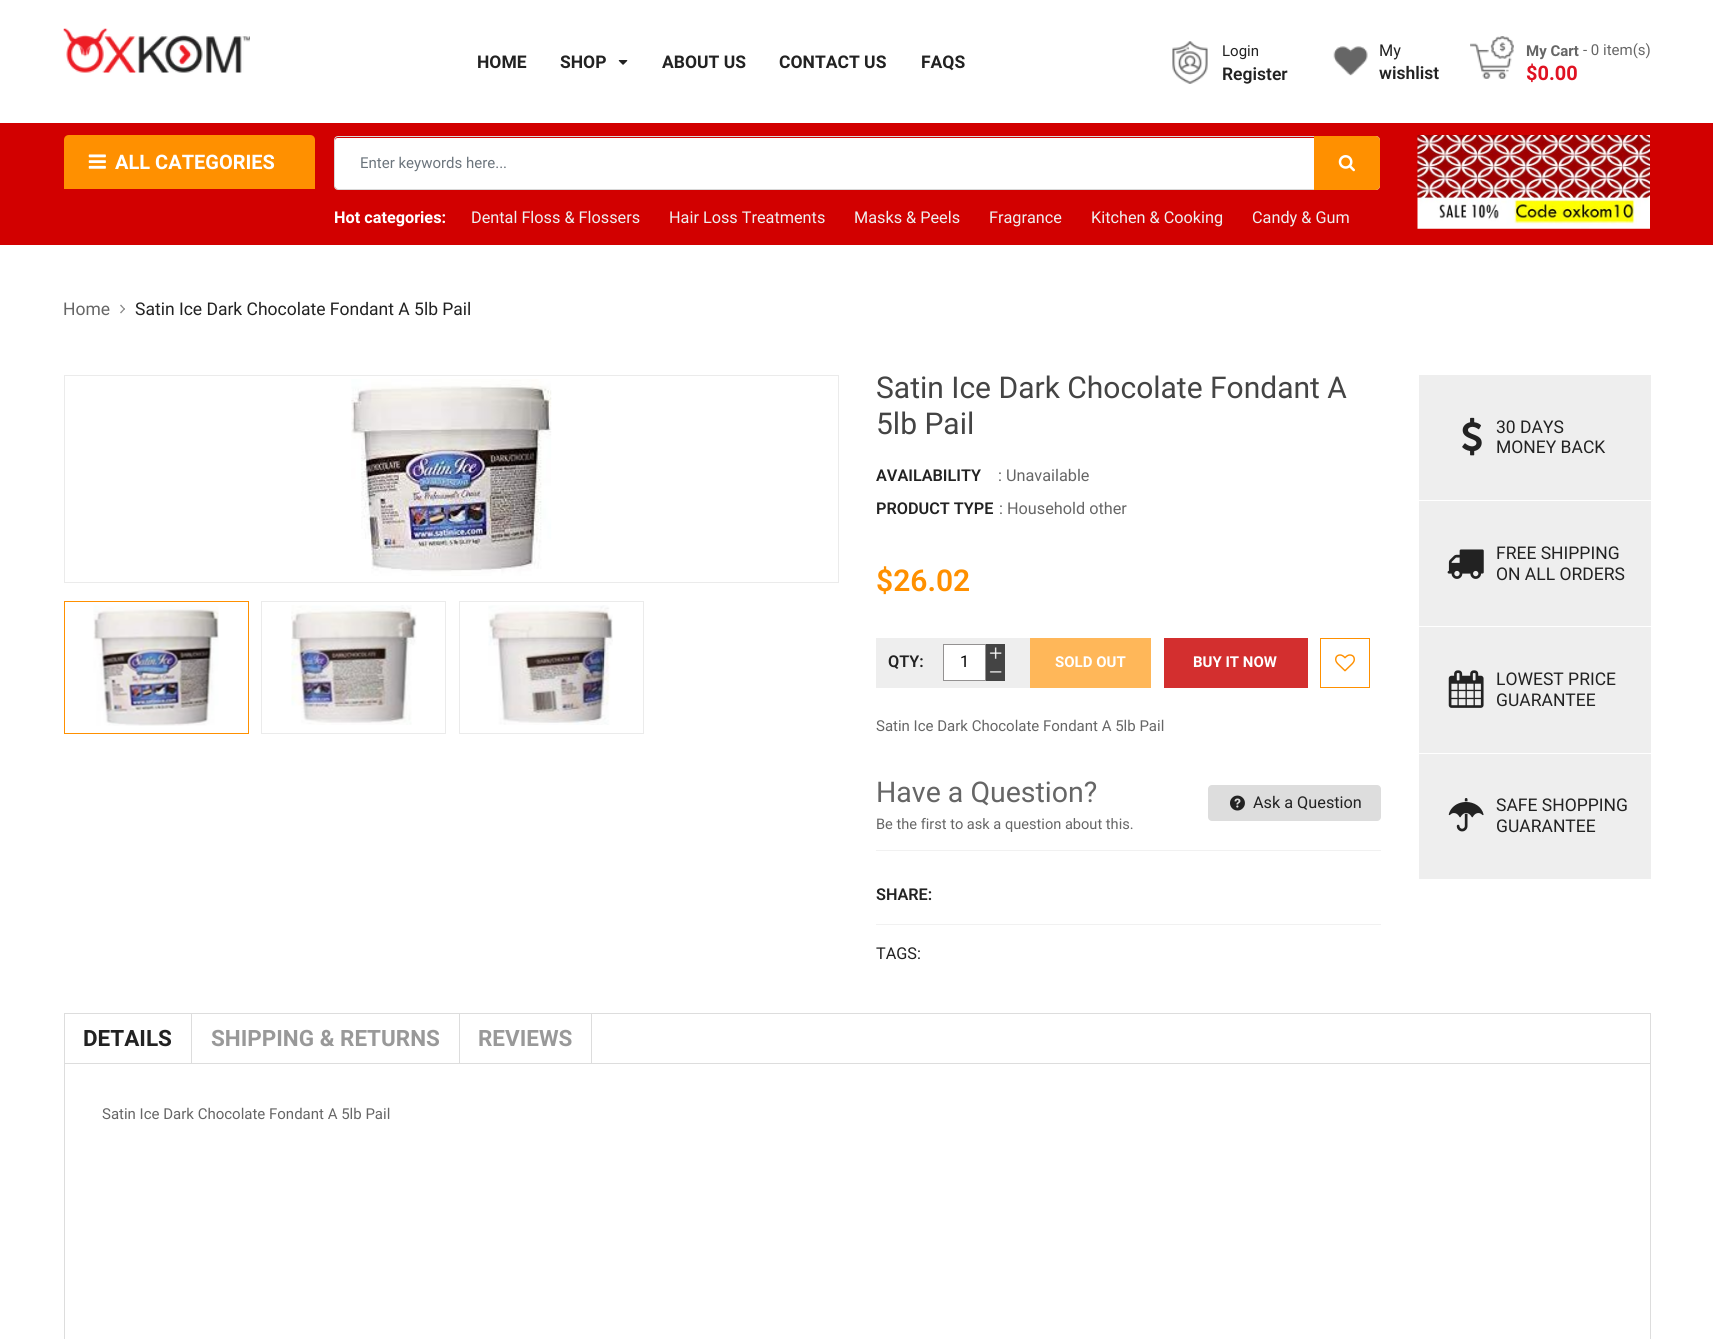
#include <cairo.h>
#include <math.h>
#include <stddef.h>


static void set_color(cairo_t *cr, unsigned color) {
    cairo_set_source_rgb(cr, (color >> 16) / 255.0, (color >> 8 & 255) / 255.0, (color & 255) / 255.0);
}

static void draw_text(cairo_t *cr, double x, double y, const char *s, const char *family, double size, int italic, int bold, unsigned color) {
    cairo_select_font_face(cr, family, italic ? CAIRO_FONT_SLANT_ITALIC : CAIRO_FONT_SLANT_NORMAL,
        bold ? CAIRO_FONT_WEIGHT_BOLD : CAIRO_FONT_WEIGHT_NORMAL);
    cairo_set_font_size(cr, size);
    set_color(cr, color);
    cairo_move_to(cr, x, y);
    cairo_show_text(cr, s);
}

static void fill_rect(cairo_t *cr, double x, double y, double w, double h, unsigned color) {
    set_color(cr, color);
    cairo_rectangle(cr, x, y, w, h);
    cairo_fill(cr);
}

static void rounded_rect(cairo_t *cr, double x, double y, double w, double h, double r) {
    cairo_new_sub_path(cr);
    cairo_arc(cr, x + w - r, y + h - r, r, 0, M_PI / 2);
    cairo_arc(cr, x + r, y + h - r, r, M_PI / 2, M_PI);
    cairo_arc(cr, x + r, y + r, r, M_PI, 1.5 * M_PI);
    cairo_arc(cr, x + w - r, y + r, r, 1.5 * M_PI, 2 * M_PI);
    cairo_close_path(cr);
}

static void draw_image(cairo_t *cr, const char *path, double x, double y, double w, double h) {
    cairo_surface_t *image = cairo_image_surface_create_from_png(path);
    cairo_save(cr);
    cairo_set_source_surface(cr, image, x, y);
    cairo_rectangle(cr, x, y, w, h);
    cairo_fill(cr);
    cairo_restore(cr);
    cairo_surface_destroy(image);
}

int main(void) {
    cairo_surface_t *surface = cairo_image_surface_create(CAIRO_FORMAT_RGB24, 1713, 1339);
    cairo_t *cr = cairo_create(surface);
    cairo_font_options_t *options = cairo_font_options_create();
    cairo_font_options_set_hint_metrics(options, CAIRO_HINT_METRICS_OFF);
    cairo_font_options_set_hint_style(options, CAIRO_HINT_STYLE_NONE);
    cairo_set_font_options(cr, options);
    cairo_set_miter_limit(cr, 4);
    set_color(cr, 0xFFFFFF);
    cairo_paint(cr);
    draw_image(cr, "assets/img1.png", 63, 28, 187, 45);
    draw_text(cr, 477, 68, "HOME", "Roboto", 17.5, 0, 1, 0x222222);
    draw_text(cr, 560, 68, "SHOP", "Roboto", 17.5, 0, 1, 0x222222);
    draw_image(cr, "assets/img2.png", 618, 60, 10, 5);
    draw_text(cr, 662, 68, "ABOUT US", "Roboto", 17.5, 0, 1, 0x222222);
    draw_text(cr, 779, 68, "CONTACT US", "Roboto", 17.5, 0, 1, 0x222222);
    draw_text(cr, 921, 68, "FAQS", "Roboto", 17.5, 0, 1, 0x222222);
    draw_image(cr, "assets/img3.png", 1172, 41, 36, 43);
    draw_text(cr, 1222, 56, "Login", "Roboto", 15, 0, 0, 0x222222);
    draw_text(cr, 1222, 80, "Register", "Roboto SemiBold", 17.5, 0, 0, 0x222222);
    draw_image(cr, "assets/img4.png", 1333, 46, 35, 30);
    draw_text(cr, 1379, 56, "My", "Roboto", 16.25, 0, 0, 0x222222);
    draw_text(cr, 1379, 79, "wishlist", "Roboto SemiBold", 17.5, 0, 0, 0x222222);
    draw_image(cr, "assets/img5.png", 1470, 36, 44, 43);
    draw_text(cr, 1526, 56, "My Cart", "Roboto", 15, 0, 1, 0x666666);
    draw_text(cr, 1583, 55, "- 0 item(s)", "Roboto", 15, 0, 0, 0x666666);
    draw_text(cr, 1526, 80, "$0.00", "Roboto", 20, 0, 1, 0xE01222);
    fill_rect(cr, 0, 123, 1713, 122, 0xD20000);
    set_color(cr, 0xFF9000);
    cairo_new_path(cr);
    cairo_move_to(cr, 69, 135);
    cairo_line_to(cr, 310, 135);
    cairo_curve_to(cr, 313, 135, 315, 137, 315, 140);
    cairo_line_to(cr, 315, 189);
    cairo_line_to(cr, 64, 189);
    cairo_line_to(cr, 64, 140);
    cairo_curve_to(cr, 64, 137, 66, 135, 69, 135);
    cairo_close_path(cr);
    cairo_fill(cr);
    draw_image(cr, "assets/img6.png", 88, 154, 18, 15);
    draw_text(cr, 115, 169, "ALL CATEGORIES", "Roboto", 20, 0, 1, 0xFFFFFF);
    rounded_rect(cr, 335, 138, 1044, 51, 2.5);
    cairo_fill(cr);
    rounded_rect(cr, 334.5, 136.5, 1045, 53, 3.5);
    set_color(cr, 0xD8D8D8);
    cairo_set_line_width(cr, 1);
    cairo_stroke(cr);
    draw_text(cr, 360, 168, "Enter keywords here...", "Roboto", 15, 0, 0, 0x6C757D);
    set_color(cr, 0xFF9000);
    cairo_new_path(cr);
    cairo_move_to(cr, 1314, 136);
    cairo_line_to(cr, 1375, 136);
    cairo_curve_to(cr, 1378, 136, 1380, 138, 1380, 141);
    cairo_line_to(cr, 1380, 185);
    cairo_curve_to(cr, 1380, 188, 1378, 190, 1375, 190);
    cairo_line_to(cr, 1314, 190);
    cairo_close_path(cr);
    cairo_fill(cr);
    draw_image(cr, "assets/img7.png", 1338, 155, 17, 17);
    draw_text(cr, 334, 223, "Hot categories:", "Roboto", 16.25, 0, 1, 0xFFFFFF);
    draw_text(cr, 471, 223, "Dental Floss & Flossers", "Roboto", 16.25, 0, 0, 0xEFEFEF);
    draw_text(cr, 669, 223, "Hair Loss Treatments", "Roboto", 16.25, 0, 0, 0xEFEFEF);
    draw_text(cr, 854, 223, "Masks & Peels", "Roboto", 16.25, 0, 0, 0xEFEFEF);
    draw_text(cr, 989, 223, "Fragrance", "Roboto", 16.25, 0, 0, 0xEFEFEF);
    draw_text(cr, 1091, 223, "Kitchen & Cooking", "Roboto", 16.25, 0, 0, 0xEFEFEF);
    draw_text(cr, 1252, 223, "Candy & Gum", "Roboto", 16.25, 0, 0, 0xEFEFEF);
    draw_image(cr, "assets/img8.png", 1417, 135, 233, 94);
    draw_text(cr, 63, 315, "Home", "Roboto", 17.5, 0, 0, 0x666666);
    set_color(cr, 0x888888);
    cairo_new_path(cr);
    cairo_move_to(cr, 121, 304.5);
    cairo_line_to(cr, 125, 309);
    cairo_line_to(cr, 124.5, 310);
    cairo_line_to(cr, 120, 305.5);
    cairo_close_path(cr);
    cairo_fill(cr);
    cairo_new_path(cr);
    cairo_move_to(cr, 124.5, 308);
    cairo_line_to(cr, 125, 309);
    cairo_line_to(cr, 121, 313.5);
    cairo_line_to(cr, 120, 312.5);
    cairo_close_path(cr);
    cairo_fill(cr);
    draw_text(cr, 135, 315, "Satin Ice Dark Chocolate Fondant A 5lb Pail", "Roboto", 17.5, 0, 0, 0x222222);
    cairo_rectangle(cr, 64.5, 375.5, 774, 207);
    set_color(cr, 0xEBEBEB);
    cairo_stroke(cr);
    draw_image(cr, "assets/img9.png", 351, 379, 201, 197);
    cairo_rectangle(cr, 64.5, 601.5, 184, 132);
    set_color(cr, 0xFF9000);
    cairo_stroke(cr);
    draw_image(cr, "assets/img10.png", 93, 605, 126, 121);
    cairo_rectangle(cr, 261.5, 601.5, 184, 132);
    set_color(cr, 0xEBEBEB);
    cairo_stroke(cr);
    draw_image(cr, "assets/img11.png", 291, 605, 126, 120);
    cairo_rectangle(cr, 459.5, 601.5, 184, 132);
    cairo_stroke(cr);
    draw_image(cr, "assets/img12.png", 488, 605, 125, 120);
    draw_text(cr, 876, 398, "Satin Ice Dark Chocolate Fondant A", "Roboto", 30, 0, 0, 0x444444);
    draw_text(cr, 876, 434, "5lb Pail", "Roboto", 30, 0, 0, 0x444444);
    draw_text(cr, 876, 481, "AVAILABILITY", "Roboto SemiBold", 16.25, 0, 0, 0x222222);
    draw_text(cr, 998, 481, ": Unavailable", "Roboto", 16.25, 0, 0, 0x666666);
    draw_text(cr, 876, 514, "PRODUCT TYPE", "Roboto SemiBold", 16.25, 0, 0, 0x222222);
    draw_text(cr, 999, 514, ": Household other", "Roboto", 16.25, 0, 0, 0x666666);
    draw_text(cr, 876, 591, "$26.02", "Roboto SemiBold", 30, 0, 0, 0xFF9000);
    fill_rect(cr, 876, 638, 154, 50, 0xEEEEEE);
    draw_text(cr, 888, 667, "QTY:", "Roboto SemiBold", 16.25, 0, 0, 0x222222);
    set_color(cr, 0xFFFFFF);
    cairo_rectangle(cr, 943.5, 644.5, 42, 36);
    cairo_fill_preserve(cr);
    set_color(cr, 0x949292);
    cairo_stroke(cr);
    draw_text(cr, 960, 667, "1", "Roboto", 16.25, 0, 0, 0x000000);
    fill_rect(cr, 986, 644, 19, 37, 0x444444);
    draw_image(cr, "assets/img13.png", 989, 647, 13, 12);
    draw_image(cr, "assets/img14.png", 989, 671, 13, 2);
    fill_rect(cr, 1030, 638, 121, 50, 0xFFB759);
    draw_text(cr, 1055, 667, "SOLD OUT", "Roboto", 15, 0, 1, 0xFFFFFF);
    fill_rect(cr, 1164, 638, 144, 50, 0xD32F2F);
    draw_text(cr, 1193, 667, "BUY IT NOW", "Roboto", 15, 0, 1, 0xFFFFFF);
    cairo_rectangle(cr, 1320.5, 638.5, 49, 49);
    set_color(cr, 0xFF9000);
    cairo_stroke(cr);
    draw_image(cr, "assets/img15.png", 1335, 654, 20, 18);
    draw_text(cr, 876, 731, "Satin Ice Dark Chocolate Fondant A 5lb Pail", "Roboto", 15, 0, 0, 0x666666);
    draw_text(cr, 876, 802, "Have a Question?", "Roboto", 28.5, 0, 0, 0x666666);
    draw_text(cr, 876, 829, "Be the first to ask a question about this.", "Roboto", 14.6, 0, 0, 0x666666);
    set_color(cr, 0xDDDDDD);
    rounded_rect(cr, 1208, 785, 173, 36, 4);
    cairo_fill(cr);
    draw_image(cr, "assets/img16.png", 1230, 795, 15, 16);
    draw_text(cr, 1253, 808, "Ask a Question", "Roboto", 16.25, 0, 0, 0x222222);
    fill_rect(cr, 876, 850, 505, 1, 0xF1F1F1);
    fill_rect(cr, 876, 924, 505, 1, 0xF1F1F1);
    draw_text(cr, 876, 900, "SHARE:", "Roboto SemiBold", 16.25, 0, 0, 0x222222);
    draw_text(cr, 876, 959, "TAGS:", "Roboto", 16.25, 0, 0, 0x222222);
    fill_rect(cr, 1419, 375, 232, 504, 0xEEEEEE);
    fill_rect(cr, 1419, 500, 232, 1, 0xFFFFFF);
    draw_image(cr, "assets/img17.png", 1462, 417, 20, 39);
    draw_text(cr, 1496, 433, "30 DAYS", "Roboto", 17.5, 0, 0, 0x222222);
    draw_text(cr, 1496, 453, "MONEY BACK", "Roboto", 17.5, 0, 0, 0x222222);
    fill_rect(cr, 1419, 626, 232, 1, 0xFFFFFF);
    draw_image(cr, "assets/img18.png", 1447, 549, 37, 30);
    draw_text(cr, 1496, 559, "FREE SHIPPING", "Roboto", 17.5, 0, 0, 0x222222);
    draw_text(cr, 1496, 580, "ON ALL ORDERS", "Roboto", 17.5, 0, 0, 0x222222);
    fill_rect(cr, 1419, 753, 232, 1, 0xFFFFFF);
    draw_image(cr, "assets/img19.png", 1448, 670, 36, 38);
    draw_text(cr, 1496, 685, "LOWEST PRICE", "Roboto", 17.5, 0, 0, 0x222222);
    draw_text(cr, 1496, 706, "GUARANTEE", "Roboto", 17.5, 0, 0, 0x222222);
    draw_image(cr, "assets/img20.png", 1448, 798, 36, 34);
    draw_text(cr, 1496, 811, "SAFE SHOPPING", "Roboto", 17.5, 0, 0, 0x222222);
    draw_text(cr, 1496, 832, "GUARANTEE", "Roboto", 17.5, 0, 0, 0x222222);
    fill_rect(cr, 64, 1013, 1587, 1, 0xDDDDDD);
    fill_rect(cr, 1650, 1013, 1, 50, 0xDDDDDD);
    fill_rect(cr, 64, 1013, 1, 50, 0xDDDDDD);
    cairo_rectangle(cr, 64.5, 1063.5, 1586, 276);
    cairo_stroke(cr);
    fill_rect(cr, 191, 1014, 1, 50, 0xDDDDDD);
    draw_text(cr, 83, 1046, "DETAILS", "Roboto", 22.5, 0, 1, 0x222222);
    fill_rect(cr, 459, 1014, 1, 50, 0xDDDDDD);
    draw_text(cr, 211, 1046, "SHIPPING & RETURNS", "Roboto", 22.5, 0, 1, 0x999999);
    fill_rect(cr, 591, 1014, 1, 50, 0xDDDDDD);
    draw_text(cr, 478, 1046, "REVIEWS", "Roboto", 22.5, 0, 1, 0x999999);
    draw_text(cr, 102, 1119, "Satin Ice Dark Chocolate Fondant A 5lb Pail", "Roboto", 15, 0, 0, 0x666666);
    cairo_surface_write_to_png(surface, "output.png");
    cairo_font_options_destroy(options);
    cairo_destroy(cr);
    cairo_surface_destroy(surface);
    return 0;
}
